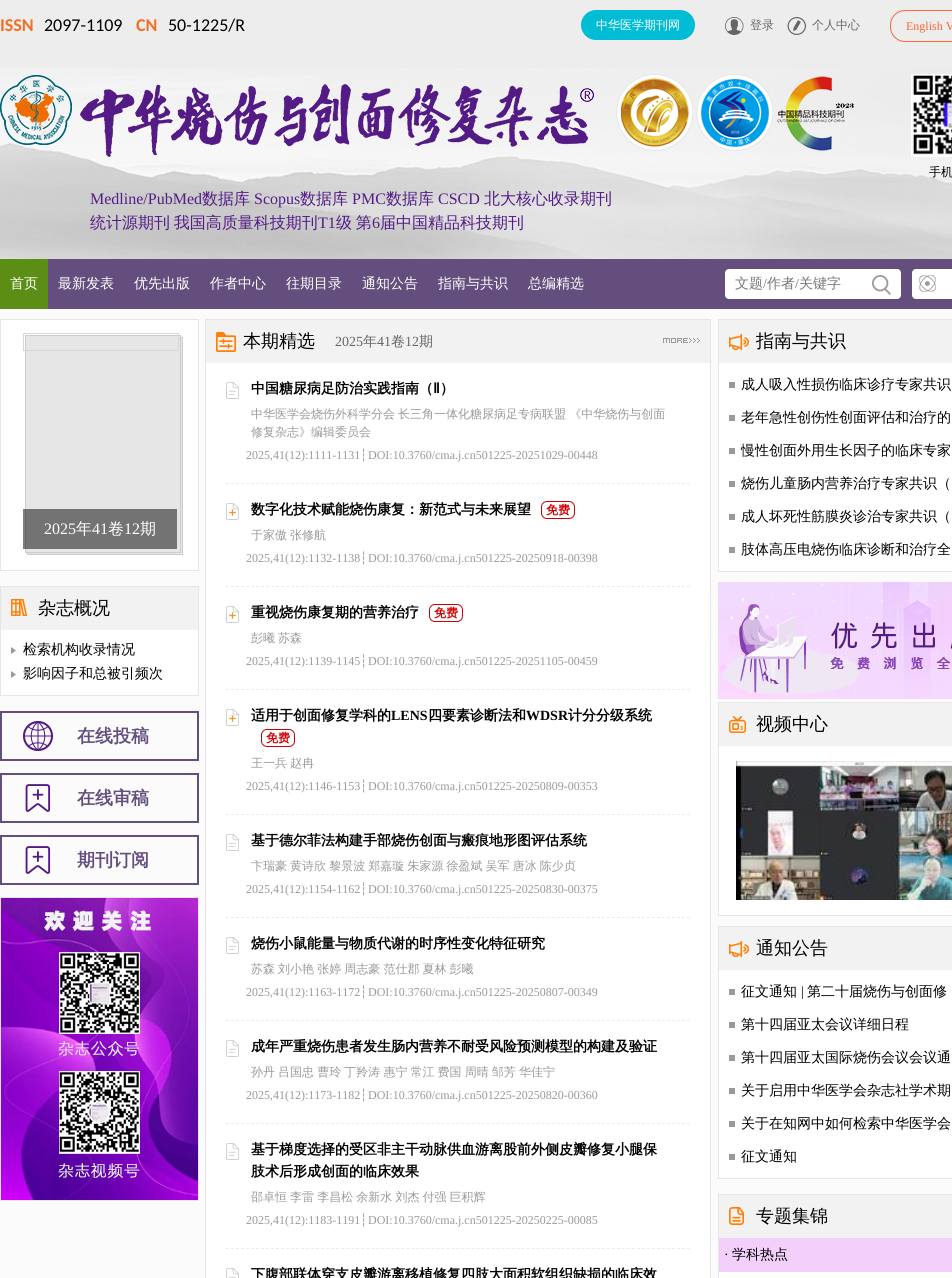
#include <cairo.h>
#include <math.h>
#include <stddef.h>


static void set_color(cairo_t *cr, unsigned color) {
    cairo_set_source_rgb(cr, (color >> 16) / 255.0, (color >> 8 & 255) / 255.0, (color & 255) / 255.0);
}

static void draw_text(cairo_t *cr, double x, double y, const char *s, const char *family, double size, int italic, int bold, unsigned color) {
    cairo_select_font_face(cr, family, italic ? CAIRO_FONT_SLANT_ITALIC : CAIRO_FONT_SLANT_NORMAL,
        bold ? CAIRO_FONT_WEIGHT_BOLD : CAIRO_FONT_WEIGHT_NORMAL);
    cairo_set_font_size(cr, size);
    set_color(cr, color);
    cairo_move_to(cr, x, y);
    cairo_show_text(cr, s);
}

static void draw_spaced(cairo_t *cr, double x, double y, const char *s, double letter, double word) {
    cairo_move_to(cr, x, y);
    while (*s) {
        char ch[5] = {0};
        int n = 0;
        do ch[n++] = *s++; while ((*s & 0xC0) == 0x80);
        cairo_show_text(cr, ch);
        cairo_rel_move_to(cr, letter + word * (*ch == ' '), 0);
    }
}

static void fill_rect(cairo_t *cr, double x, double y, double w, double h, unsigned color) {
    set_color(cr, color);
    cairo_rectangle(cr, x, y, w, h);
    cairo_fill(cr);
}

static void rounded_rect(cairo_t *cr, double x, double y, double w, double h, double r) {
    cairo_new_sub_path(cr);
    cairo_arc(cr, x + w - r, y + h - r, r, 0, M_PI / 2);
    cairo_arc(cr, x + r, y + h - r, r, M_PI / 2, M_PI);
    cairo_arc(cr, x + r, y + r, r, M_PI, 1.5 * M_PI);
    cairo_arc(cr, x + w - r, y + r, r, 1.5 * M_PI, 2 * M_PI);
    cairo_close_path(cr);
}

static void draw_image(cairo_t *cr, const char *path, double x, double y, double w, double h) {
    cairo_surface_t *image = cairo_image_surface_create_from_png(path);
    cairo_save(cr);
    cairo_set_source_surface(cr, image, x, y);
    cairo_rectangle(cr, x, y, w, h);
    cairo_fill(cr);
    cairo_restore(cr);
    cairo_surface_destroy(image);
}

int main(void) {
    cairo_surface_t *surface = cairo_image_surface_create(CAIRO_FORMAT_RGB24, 952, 1278);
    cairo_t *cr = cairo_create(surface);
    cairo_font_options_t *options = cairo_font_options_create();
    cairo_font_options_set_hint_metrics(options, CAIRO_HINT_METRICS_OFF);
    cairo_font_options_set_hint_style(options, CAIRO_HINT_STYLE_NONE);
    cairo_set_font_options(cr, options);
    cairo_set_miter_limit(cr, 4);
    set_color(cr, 0xFBFBFB);
    cairo_paint(cr);
    fill_rect(cr, 0, 0, 952, 68, 0xEDEDED);
    draw_image(cr, "assets/img1.png", 0, 68, 952, 191);
    draw_text(cr, 0, 31, "ISSN", "Carlito", 18, 0, 1, 0xF36F21);
    draw_text(cr, 44, 31, "2097-1109", "Carlito", 18, 0, 0, 0x000000);
    draw_text(cr, 136, 31, "CN", "Carlito", 18, 0, 1, 0xF36F21);
    draw_text(cr, 168, 31, "50-1225/R", "Carlito", 18, 0, 0, 0x000000);
    set_color(cr, 0x00BCD4);
    rounded_rect(cr, 581, 10, 114, 30, 15);
    cairo_fill(cr);
    draw_text(cr, 596, 29, "中华医学期刊网", "WenQuanYi Zen Hei Medium", 12, 0, 0, 0xFFFFFF);
    draw_image(cr, "assets/img2.png", 725, 17, 19, 18);
    draw_text(cr, 750, 29, "登录", "WenQuanYi Zen Hei Medium", 12, 0, 0, 0x666666);
    draw_image(cr, "assets/img3.png", 787, 17, 19, 18);
    draw_text(cr, 812, 29, "个人中心", "WenQuanYi Zen Hei Medium", 12, 0, 0, 0x666666);
    rounded_rect(cr, 890.5, 10.5, 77, 31, 14.5);
    set_color(cr, 0xFF6633);
    cairo_set_line_width(cr, 1);
    cairo_stroke(cr);
    draw_text(cr, 906, 30, "English V", "Liberation Serif", 12, 0, 0, 0xFF6633);
    draw_image(cr, "assets/img4.png", 0, 75, 72, 70);
    draw_image(cr, "assets/img5.png", 80, 84, 514, 73);
    draw_image(cr, "assets/img6.png", 616, 74, 77, 77);
    draw_image(cr, "assets/img7.png", 696, 74, 77, 77);
    draw_image(cr, "assets/img8.png", 777, 76, 77, 75);
    draw_image(cr, "assets/img9.png", 911, 74, 41, 83);
    draw_text(cr, 929, 176, "手机", "WenQuanYi Zen Hei Medium", 12, 0, 0, 0x000000);
    draw_text(cr, 90, 204, "Medline/PubMed", "Liberation Serif", 16, 0, 0, 0x531B86);
    draw_text(cr, 202, 204, "数据库", "WenQuanYi Zen Hei Medium", 16, 0, 0, 0x531B86);
    draw_text(cr, 254, 204, "Scopus", "Liberation Serif", 16, 0, 0, 0x531B86);
    draw_text(cr, 300, 204, "数据库", "WenQuanYi Zen Hei Medium", 16, 0, 0, 0x531B86);
    draw_text(cr, 352, 204, "PMC", "Liberation Serif", 16, 0, 0, 0x531B86);
    draw_text(cr, 386, 204, "数据库", "WenQuanYi Zen Hei Medium", 16, 0, 0, 0x531B86);
    draw_text(cr, 438, 204, "CSCD", "Liberation Serif", 16, 0, 0, 0x531B86);
    draw_text(cr, 484, 204, "北大核心收录期刊", "WenQuanYi Zen Hei Medium", 16, 0, 0, 0x531B86);
    draw_spaced(cr, 90, 228, "统计源期刊 我国高质量科技期刊", 0, -1);
    draw_text(cr, 318, 228, "T1", "Liberation Serif", 16, 0, 0, 0x531B86);
    cairo_select_font_face(cr, "WenQuanYi Zen Hei Medium", CAIRO_FONT_SLANT_NORMAL, CAIRO_FONT_WEIGHT_NORMAL);
    draw_spaced(cr, 336, 228, "级 第", 0, -1);
    draw_text(cr, 372, 228, "6", "Liberation Serif", 16, 0, 0, 0x531B86);
    draw_text(cr, 380, 228, "届中国精品科技期刊", "WenQuanYi Zen Hei Medium", 16, 0, 0, 0x531B86);
    fill_rect(cr, 48, 259, 904, 50, 0x644E7E);
    fill_rect(cr, 0, 259, 48, 50, 0x5C8E16);
    draw_text(cr, 10, 288, "首页", "WenQuanYi Zen Hei Medium", 14, 0, 0, 0xFFFFFF);
    draw_text(cr, 58, 288, "最新发表", "WenQuanYi Zen Hei Medium", 14, 0, 0, 0xFFFFFF);
    draw_text(cr, 134, 288, "优先出版", "WenQuanYi Zen Hei Medium", 14, 0, 0, 0xFFFFFF);
    draw_text(cr, 210, 288, "作者中心", "WenQuanYi Zen Hei Medium", 14, 0, 0, 0xFFFFFF);
    draw_text(cr, 286, 288, "往期目录", "WenQuanYi Zen Hei Medium", 14, 0, 0, 0xFFFFFF);
    draw_text(cr, 362, 288, "通知公告", "WenQuanYi Zen Hei Medium", 14, 0, 0, 0xFFFFFF);
    draw_text(cr, 438, 288, "指南与共识", "WenQuanYi Zen Hei Medium", 14, 0, 0, 0xFFFFFF);
    draw_text(cr, 528, 288, "总编精选", "WenQuanYi Zen Hei Medium", 14, 0, 0, 0xFFFFFF);
    draw_image(cr, "assets/img10.png", 725, 269, 176, 30);
    draw_text(cr, 735, 288, "文题", "WenQuanYi Zen Hei Medium", 14, 0, 0, 0x757575);
    draw_text(cr, 763, 288, "/", "Liberation Serif", 14, 0, 0, 0x757575);
    draw_text(cr, 767, 288, "作者", "WenQuanYi Zen Hei Medium", 14, 0, 0, 0x757575);
    draw_text(cr, 795, 288, "/", "Liberation Serif", 14, 0, 0, 0x757575);
    draw_text(cr, 799, 288, "关键字", "WenQuanYi Zen Hei Medium", 14, 0, 0, 0x757575);
    draw_image(cr, "assets/img11.png", 872, 275, 19, 20);
    draw_image(cr, "assets/img12.png", 912, 269, 40, 30);
    draw_image(cr, "assets/img13.png", 919, 275, 17, 17);
    set_color(cr, 0xFFFFFF);
    cairo_rectangle(cr, 0.5, 319.5, 198, 251);
    cairo_fill_preserve(cr);
    set_color(cr, 0xE6E6E6);
    cairo_stroke(cr);
    cairo_rectangle(cr, 27.5, 337.5, 155, 217);
    cairo_fill_preserve(cr);
    set_color(cr, 0xCCCCCC);
    cairo_stroke(cr);
    set_color(cr, 0xE6E6E6);
    cairo_rectangle(cr, 25.5, 335.5, 155, 217);
    cairo_fill_preserve(cr);
    set_color(cr, 0xCCCCCC);
    cairo_stroke(cr);
    cairo_rectangle(cr, 23.5, 333.5, 155, 17);
    set_color(cr, 0xD8D7D8);
    cairo_stroke(cr);
    cairo_set_source_rgba(cr, 0, 0, 0, 0.5);
    cairo_rectangle(cr, 23, 509, 154, 40);
    cairo_fill(cr);
    draw_text(cr, 44, 534, "2025", "Liberation Serif", 16, 0, 0, 0xFFFFFF);
    draw_text(cr, 76, 534, "年", "WenQuanYi Zen Hei Medium", 16, 0, 0, 0xFFFFFF);
    draw_text(cr, 92, 534, "41", "Liberation Serif", 16, 0, 0, 0xFFFFFF);
    draw_text(cr, 108, 534, "卷", "WenQuanYi Zen Hei Medium", 16, 0, 0, 0xFFFFFF);
    draw_text(cr, 124, 534, "12", "Liberation Serif", 16, 0, 0, 0xFFFFFF);
    draw_text(cr, 140, 534, "期", "WenQuanYi Zen Hei Medium", 16, 0, 0, 0xFFFFFF);
    fill_rect(cr, 1, 630, 197, 65, 0xFFFFFF);
    cairo_rectangle(cr, 0.5, 586.5, 198, 109);
    set_color(cr, 0xE6E6E6);
    cairo_stroke(cr);
    fill_rect(cr, 1, 587, 197, 43, 0xF2F2F2);
    draw_image(cr, "assets/img14.png", 11, 599, 16, 17);
    draw_text(cr, 38, 614, "杂志概况", "WenQuanYi Zen Hei Medium", 18, 0, 0, 0x000000);
    draw_image(cr, "assets/img15.png", 11, 647, 5, 7);
    draw_text(cr, 23, 654, "检索机构收录情况", "WenQuanYi Zen Hei Medium", 14, 0, 0, 0x000000);
    draw_image(cr, "assets/img15.png", 11, 671, 5, 7);
    draw_text(cr, 23, 678, "影响因子和总被引频次", "WenQuanYi Zen Hei Medium", 14, 0, 0, 0x000000);
    draw_image(cr, "assets/img16.png", 23, 721, 30, 30);
    cairo_rectangle(cr, 1, 712, 197, 48);
    set_color(cr, 0x644E7E);
    cairo_set_line_width(cr, 2);
    cairo_stroke(cr);
    draw_text(cr, 77, 742, "在线投稿", "WenQuanYi Zen Hei", 18, 0, 1, 0x644E7E);
    draw_image(cr, "assets/img17.png", 25, 784, 26, 28);
    cairo_rectangle(cr, 1, 774, 197, 48);
    cairo_stroke(cr);
    draw_text(cr, 77, 804, "在线审稿", "WenQuanYi Zen Hei", 18, 0, 1, 0x644E7E);
    draw_image(cr, "assets/img17.png", 25, 846, 26, 28);
    cairo_rectangle(cr, 1, 836, 197, 48);
    cairo_stroke(cr);
    draw_text(cr, 77, 866, "期刊订阅", "WenQuanYi Zen Hei", 18, 0, 1, 0x644E7E);
    cairo_rectangle(cr, 0.5, 897.5, 198, 303);
    set_color(cr, 0xE6E6E6);
    cairo_set_line_width(cr, 1);
    cairo_stroke(cr);
    draw_image(cr, "assets/img18.png", 1, 898, 197, 302);
    cairo_rectangle(cr, 205.5, 319.5, 505, 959);
    cairo_stroke(cr);
    fill_rect(cr, 206, 363, 504, 915, 0xFFFFFF);
    fill_rect(cr, 206, 320, 504, 43, 0xF2F2F2);
    draw_image(cr, "assets/img19.png", 216, 332, 20, 20);
    draw_text(cr, 243, 347, "本期精选", "WenQuanYi Zen Hei Medium", 18, 0, 0, 0x000000);
    draw_text(cr, 335, 346, "2025", "Liberation Serif", 14, 0, 0, 0x666666);
    draw_text(cr, 363, 346, "年", "WenQuanYi Zen Hei Medium", 14, 0, 0, 0x666666);
    draw_text(cr, 377, 346, "41", "Liberation Serif", 14, 0, 0, 0x666666);
    draw_text(cr, 391, 346, "卷", "WenQuanYi Zen Hei Medium", 14, 0, 0, 0x666666);
    draw_text(cr, 405, 346, "12", "Liberation Serif", 14, 0, 0, 0x666666);
    draw_text(cr, 419, 346, "期", "WenQuanYi Zen Hei Medium", 14, 0, 0, 0x666666);
    draw_image(cr, "assets/img20.png", 663, 338, 37, 5);
    draw_image(cr, "assets/img21.png", 226, 382, 13, 17);
    cairo_new_path(cr);
    cairo_move_to(cr, 226, 483.5);
    cairo_line_to(cr, 690, 483.5);
    set_color(cr, 0xECEBEB);
    cairo_set_dash(cr, (double[]){3, 2.01}, 2, 0);
    cairo_stroke(cr);
    draw_text(cr, 251, 393, "中国糖尿病足防治实践指南（", "WenQuanYi Zen Hei", 14, 0, 1, 0x000000);
    draw_text(cr, 433, 393, "Ⅱ", "DejaVu Sans", 14, 0, 1, 0x000000);
    draw_text(cr, 440, 393, "）", "WenQuanYi Zen Hei", 14, 0, 1, 0x000000);
    cairo_select_font_face(cr, "WenQuanYi Zen Hei Medium", CAIRO_FONT_SLANT_NORMAL, CAIRO_FONT_WEIGHT_NORMAL);
    cairo_set_font_size(cr, 12);
    set_color(cr, 0x999999);
    draw_spaced(cr, 251, 418, "中华医学会烧伤外科学分会 长三角一体化糖尿病足专病联盟 《中华烧伤与创面", 0, -0.5);
    draw_text(cr, 251, 436, "修复杂志》编辑委员会", "WenQuanYi Zen Hei Medium", 12, 0, 0, 0x999999);
    draw_text(cr, 246, 459, "2025,41(12):1111-1131", "Liberation Serif", 12, 0, 0, 0x999999);
    draw_text(cr, 360, 459, "┆", "DejaVu Sans", 12, 0, 0, 0x999999);
    draw_text(cr, 368, 459, "DOI:10.3760/cma.j.cn501225-20251029-00448", "Liberation Serif", 12, 0, 0, 0x999999);
    draw_image(cr, "assets/img22.png", 226, 503, 13, 17);
    cairo_new_path(cr);
    cairo_move_to(cr, 226, 586.5);
    cairo_line_to(cr, 690, 586.5);
    set_color(cr, 0xECEBEB);
    cairo_stroke(cr);
    draw_text(cr, 251, 514, "数字化技术赋能烧伤康复：新范式与未来展望", "WenQuanYi Zen Hei", 14, 0, 1, 0x000000);
    rounded_rect(cr, 541.5, 501.5, 33, 17, 5.5);
    set_color(cr, 0xCC0000);
    cairo_set_dash(cr, NULL, 0, 0);
    cairo_stroke(cr);
    draw_text(cr, 546, 514, "免费", "WenQuanYi Zen Hei", 12, 0, 1, 0xCC0000);
    cairo_select_font_face(cr, "WenQuanYi Zen Hei Medium", CAIRO_FONT_SLANT_NORMAL, CAIRO_FONT_WEIGHT_NORMAL);
    set_color(cr, 0x999999);
    draw_spaced(cr, 251, 539, "于家傲 张修航", 0, -0.5);
    draw_text(cr, 246, 562, "2025,41(12):1132-1138", "Liberation Serif", 12, 0, 0, 0x999999);
    draw_text(cr, 360, 562, "┆", "DejaVu Sans", 12, 0, 0, 0x999999);
    draw_text(cr, 368, 562, "DOI:10.3760/cma.j.cn501225-20250918-00398", "Liberation Serif", 12, 0, 0, 0x999999);
    draw_image(cr, "assets/img22.png", 226, 606, 13, 17);
    cairo_new_path(cr);
    cairo_move_to(cr, 226, 689.5);
    cairo_line_to(cr, 690, 689.5);
    set_color(cr, 0xECEBEB);
    cairo_set_dash(cr, (double[]){3, 2.01}, 2, 0);
    cairo_stroke(cr);
    draw_text(cr, 251, 617, "重视烧伤康复期的营养治疗", "WenQuanYi Zen Hei", 14, 0, 1, 0x000000);
    rounded_rect(cr, 429.5, 604.5, 33, 17, 5.5);
    set_color(cr, 0xCC0000);
    cairo_set_dash(cr, NULL, 0, 0);
    cairo_stroke(cr);
    draw_text(cr, 434, 617, "免费", "WenQuanYi Zen Hei", 12, 0, 1, 0xCC0000);
    cairo_select_font_face(cr, "WenQuanYi Zen Hei Medium", CAIRO_FONT_SLANT_NORMAL, CAIRO_FONT_WEIGHT_NORMAL);
    set_color(cr, 0x999999);
    draw_spaced(cr, 251, 642, "彭曦 苏森", 0, -0.5);
    draw_text(cr, 246, 665, "2025,41(12):1139-1145", "Liberation Serif", 12, 0, 0, 0x999999);
    draw_text(cr, 360, 665, "┆", "DejaVu Sans", 12, 0, 0, 0x999999);
    draw_text(cr, 368, 665, "DOI:10.3760/cma.j.cn501225-20251105-00459", "Liberation Serif", 12, 0, 0, 0x999999);
    draw_image(cr, "assets/img22.png", 226, 709, 13, 17);
    cairo_new_path(cr);
    cairo_move_to(cr, 226, 814.5);
    cairo_line_to(cr, 690, 814.5);
    set_color(cr, 0xECEBEB);
    cairo_set_dash(cr, (double[]){3, 2.01}, 2, 0);
    cairo_stroke(cr);
    draw_text(cr, 251, 720, "适用于创面修复学科的", "WenQuanYi Zen Hei", 14, 0, 1, 0x000000);
    draw_text(cr, 391, 720, "LENS", "Liberation Serif", 14, 0, 1, 0x000000);
    draw_text(cr, 428, 720, "四要素诊断法和", "WenQuanYi Zen Hei", 14, 0, 1, 0x000000);
    draw_text(cr, 526, 720, "WDSR", "Liberation Serif", 14, 0, 1, 0x000000);
    draw_text(cr, 568, 720, "计分分级系统", "WenQuanYi Zen Hei", 14, 0, 1, 0x000000);
    rounded_rect(cr, 261.5, 729.5, 33, 17, 5.5);
    set_color(cr, 0xCC0000);
    cairo_set_dash(cr, NULL, 0, 0);
    cairo_stroke(cr);
    draw_text(cr, 266, 742, "免费", "WenQuanYi Zen Hei", 12, 0, 1, 0xCC0000);
    cairo_select_font_face(cr, "WenQuanYi Zen Hei Medium", CAIRO_FONT_SLANT_NORMAL, CAIRO_FONT_WEIGHT_NORMAL);
    set_color(cr, 0x999999);
    draw_spaced(cr, 251, 767, "王一兵 赵冉", 0, -0.5);
    draw_text(cr, 246, 790, "2025,41(12):1146-1153", "Liberation Serif", 12, 0, 0, 0x999999);
    draw_text(cr, 360, 790, "┆", "DejaVu Sans", 12, 0, 0, 0x999999);
    draw_text(cr, 368, 790, "DOI:10.3760/cma.j.cn501225-20250809-00353", "Liberation Serif", 12, 0, 0, 0x999999);
    draw_image(cr, "assets/img21.png", 226, 834, 13, 17);
    cairo_new_path(cr);
    cairo_move_to(cr, 226, 917.5);
    cairo_line_to(cr, 690, 917.5);
    set_color(cr, 0xECEBEB);
    cairo_set_dash(cr, (double[]){3, 2.01}, 2, 0);
    cairo_stroke(cr);
    draw_text(cr, 251, 845, "基于德尔菲法构建手部烧伤创面与瘢痕地形图评估系统", "WenQuanYi Zen Hei", 14, 0, 1, 0x000000);
    cairo_select_font_face(cr, "WenQuanYi Zen Hei Medium", CAIRO_FONT_SLANT_NORMAL, CAIRO_FONT_WEIGHT_NORMAL);
    cairo_set_font_size(cr, 12);
    set_color(cr, 0x999999);
    draw_spaced(cr, 251, 870, "卞瑞豪 黄诗欣 黎景波 郑嘉璇 朱家源 徐盈斌 吴军 唐冰 陈少贞", 0, -0.5);
    draw_text(cr, 246, 893, "2025,41(12):1154-1162", "Liberation Serif", 12, 0, 0, 0x999999);
    draw_text(cr, 360, 893, "┆", "DejaVu Sans", 12, 0, 0, 0x999999);
    draw_text(cr, 368, 893, "DOI:10.3760/cma.j.cn501225-20250830-00375", "Liberation Serif", 12, 0, 0, 0x999999);
    draw_image(cr, "assets/img21.png", 226, 937, 13, 17);
    cairo_new_path(cr);
    cairo_move_to(cr, 226, 1020.5);
    cairo_line_to(cr, 690, 1020.5);
    set_color(cr, 0xECEBEB);
    cairo_stroke(cr);
    draw_text(cr, 251, 948, "烧伤小鼠能量与物质代谢的时序性变化特征研究", "WenQuanYi Zen Hei", 14, 0, 1, 0x000000);
    cairo_select_font_face(cr, "WenQuanYi Zen Hei Medium", CAIRO_FONT_SLANT_NORMAL, CAIRO_FONT_WEIGHT_NORMAL);
    cairo_set_font_size(cr, 12);
    set_color(cr, 0x999999);
    draw_spaced(cr, 251, 973, "苏森 刘小艳 张婷 周志豪 范仕郡 夏林 彭曦", 0, -0.5);
    draw_text(cr, 246, 996, "2025,41(12):1163-1172", "Liberation Serif", 12, 0, 0, 0x999999);
    draw_text(cr, 360, 996, "┆", "DejaVu Sans", 12, 0, 0, 0x999999);
    draw_text(cr, 368, 996, "DOI:10.3760/cma.j.cn501225-20250807-00349", "Liberation Serif", 12, 0, 0, 0x999999);
    draw_image(cr, "assets/img21.png", 226, 1040, 13, 17);
    cairo_new_path(cr);
    cairo_move_to(cr, 226, 1123.5);
    cairo_line_to(cr, 690, 1123.5);
    set_color(cr, 0xECEBEB);
    cairo_stroke(cr);
    draw_text(cr, 251, 1051, "成年严重烧伤患者发生肠内营养不耐受风险预测模型的构建及验证", "WenQuanYi Zen Hei", 14, 0, 1, 0x000000);
    cairo_select_font_face(cr, "WenQuanYi Zen Hei Medium", CAIRO_FONT_SLANT_NORMAL, CAIRO_FONT_WEIGHT_NORMAL);
    cairo_set_font_size(cr, 12);
    set_color(cr, 0x999999);
    draw_spaced(cr, 251, 1076, "孙丹 吕国忠 曹玲 丁羚涛 惠宁 常江 费国 周晴 邹芳 华佳宁", 0, -0.5);
    draw_text(cr, 246, 1099, "2025,41(12):1173-1182", "Liberation Serif", 12, 0, 0, 0x999999);
    draw_text(cr, 360, 1099, "┆", "DejaVu Sans", 12, 0, 0, 0x999999);
    draw_text(cr, 368, 1099, "DOI:10.3760/cma.j.cn501225-20250820-00360", "Liberation Serif", 12, 0, 0, 0x999999);
    draw_image(cr, "assets/img21.png", 226, 1143, 13, 17);
    cairo_new_path(cr);
    cairo_move_to(cr, 226, 1248.5);
    cairo_line_to(cr, 690, 1248.5);
    set_color(cr, 0xECEBEB);
    cairo_stroke(cr);
    draw_text(cr, 251, 1154, "基于梯度选择的受区非主干动脉供血游离股前外侧皮瓣修复小腿保", "WenQuanYi Zen Hei", 14, 0, 1, 0x000000);
    draw_text(cr, 251, 1176, "肢术后形成创面的临床效果", "WenQuanYi Zen Hei", 14, 0, 1, 0x000000);
    cairo_select_font_face(cr, "WenQuanYi Zen Hei Medium", CAIRO_FONT_SLANT_NORMAL, CAIRO_FONT_WEIGHT_NORMAL);
    cairo_set_font_size(cr, 12);
    set_color(cr, 0x999999);
    draw_spaced(cr, 251, 1201, "邵卓恒 李雷 李昌松 余新水 刘杰 付强 巨积辉", 0, -0.5);
    draw_text(cr, 246, 1224, "2025,41(12):1183-1191", "Liberation Serif", 12, 0, 0, 0x999999);
    draw_text(cr, 360, 1224, "┆", "DejaVu Sans", 12, 0, 0, 0x999999);
    draw_text(cr, 368, 1224, "DOI:10.3760/cma.j.cn501225-20250225-00085", "Liberation Serif", 12, 0, 0, 0x999999);
    draw_image(cr, "assets/img23.png", 226, 1268, 13, 10);
    draw_text(cr, 251, 1279, "下腹部联体穿支皮瓣游离移植修复四肢大面积软组织缺损的临床效", "WenQuanYi Zen Hei", 14, 0, 1, 0x000000);
    fill_rect(cr, 719, 363, 233, 208, 0xFFFFFF);
    cairo_rectangle(cr, 718.5, 319.5, 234, 252);
    set_color(cr, 0xE6E6E6);
    cairo_set_dash(cr, NULL, 0, 0);
    cairo_stroke(cr);
    fill_rect(cr, 719, 320, 233, 43, 0xF2F2F2);
    draw_image(cr, "assets/img24.png", 729, 334, 20, 16);
    draw_text(cr, 756, 347, "指南与共识", "WenQuanYi Zen Hei Medium", 18, 0, 0, 0x000000);
    fill_rect(cr, 729, 382, 6, 6, 0x9A9A9A);
    draw_text(cr, 741, 389, "成人吸入性损伤临床诊疗专家共识", "WenQuanYi Zen Hei Medium", 14, 0, 0, 0x000000);
    fill_rect(cr, 729, 415, 6, 6, 0x9A9A9A);
    draw_text(cr, 741, 422, "老年急性创伤性创面评估和治疗的", "WenQuanYi Zen Hei Medium", 14, 0, 0, 0x000000);
    fill_rect(cr, 729, 448, 6, 6, 0x9A9A9A);
    draw_text(cr, 741, 455, "慢性创面外用生长因子的临床专家", "WenQuanYi Zen Hei Medium", 14, 0, 0, 0x000000);
    fill_rect(cr, 729, 481, 6, 6, 0x9A9A9A);
    draw_text(cr, 741, 488, "烧伤儿童肠内营养治疗专家共识（", "WenQuanYi Zen Hei Medium", 14, 0, 0, 0x000000);
    fill_rect(cr, 729, 514, 6, 6, 0x9A9A9A);
    draw_text(cr, 741, 521, "成人坏死性筋膜炎诊治专家共识（", "WenQuanYi Zen Hei Medium", 14, 0, 0, 0x000000);
    fill_rect(cr, 729, 547, 6, 6, 0x9A9A9A);
    draw_text(cr, 741, 554, "肢体高压电烧伤临床诊断和治疗全", "WenQuanYi Zen Hei Medium", 14, 0, 0, 0x000000);
    draw_image(cr, "assets/img25.png", 718, 582, 234, 117);
    fill_rect(cr, 719, 746, 233, 169, 0xFFFFFF);
    cairo_rectangle(cr, 718.5, 702.5, 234, 213);
    set_color(cr, 0xE6E6E6);
    cairo_stroke(cr);
    fill_rect(cr, 719, 703, 233, 43, 0xF2F2F2);
    draw_image(cr, "assets/img26.png", 729, 716, 17, 17);
    draw_text(cr, 756, 730, "视频中心", "WenQuanYi Zen Hei Medium", 18, 0, 0, 0x000000);
    draw_image(cr, "assets/img27.png", 736, 761, 216, 139);
    fill_rect(cr, 719, 970, 233, 208, 0xFFFFFF);
    cairo_rectangle(cr, 718.5, 926.5, 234, 252);
    set_color(cr, 0xE6E6E6);
    cairo_stroke(cr);
    fill_rect(cr, 719, 927, 233, 43, 0xF2F2F2);
    draw_image(cr, "assets/img24.png", 729, 941, 20, 16);
    draw_text(cr, 756, 954, "通知公告", "WenQuanYi Zen Hei Medium", 18, 0, 0, 0x000000);
    fill_rect(cr, 729, 989, 6, 6, 0x9A9A9A);
    draw_text(cr, 741, 996, "征文通知", "WenQuanYi Zen Hei Medium", 14, 0, 0, 0x000000);
    draw_text(cr, 801, 996, "|", "Liberation Serif", 14, 0, 0, 0x000000);
    draw_text(cr, 807, 996, "第二十届烧伤与创面修", "WenQuanYi Zen Hei Medium", 14, 0, 0, 0x000000);
    fill_rect(cr, 729, 1022, 6, 6, 0x9A9A9A);
    draw_text(cr, 741, 1029, "第十四届亚太会议详细日程", "WenQuanYi Zen Hei Medium", 14, 0, 0, 0x000000);
    fill_rect(cr, 729, 1055, 6, 6, 0x9A9A9A);
    draw_text(cr, 741, 1062, "第十四届亚太国际烧伤会议会议通", "WenQuanYi Zen Hei Medium", 14, 0, 0, 0x000000);
    fill_rect(cr, 729, 1088, 6, 6, 0x9A9A9A);
    draw_text(cr, 741, 1095, "关于启用中华医学会杂志社学术期", "WenQuanYi Zen Hei Medium", 14, 0, 0, 0x000000);
    fill_rect(cr, 729, 1121, 6, 6, 0x9A9A9A);
    draw_text(cr, 741, 1128, "关于在知网中如何检索中华医学会", "WenQuanYi Zen Hei Medium", 14, 0, 0, 0x000000);
    fill_rect(cr, 729, 1154, 6, 6, 0x9A9A9A);
    draw_text(cr, 741, 1161, "征文通知", "WenQuanYi Zen Hei Medium", 14, 0, 0, 0x000000);
    fill_rect(cr, 719, 1272, 233, 6, 0xFFFFFF);
    cairo_rectangle(cr, 718.5, 1194.5, 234, 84);
    set_color(cr, 0xE6E6E6);
    cairo_stroke(cr);
    fill_rect(cr, 719, 1195, 233, 43, 0xF2F2F2);
    draw_image(cr, "assets/img28.png", 729, 1207, 15, 18);
    draw_text(cr, 756, 1222, "专题集锦", "WenQuanYi Zen Hei Medium", 18, 0, 0, 0x000000);
    fill_rect(cr, 719, 1238, 233, 34, 0xF3D0FB);
    draw_text(cr, 724, 1259, "·", "Liberation Serif", 14, 0, 0, 0x000000);
    draw_text(cr, 732, 1259, "学科热点", "WenQuanYi Zen Hei Medium", 14, 0, 0, 0x000000);
    cairo_surface_write_to_png(surface, "output.png");
    cairo_font_options_destroy(options);
    cairo_destroy(cr);
    cairo_surface_destroy(surface);
    return 0;
}
